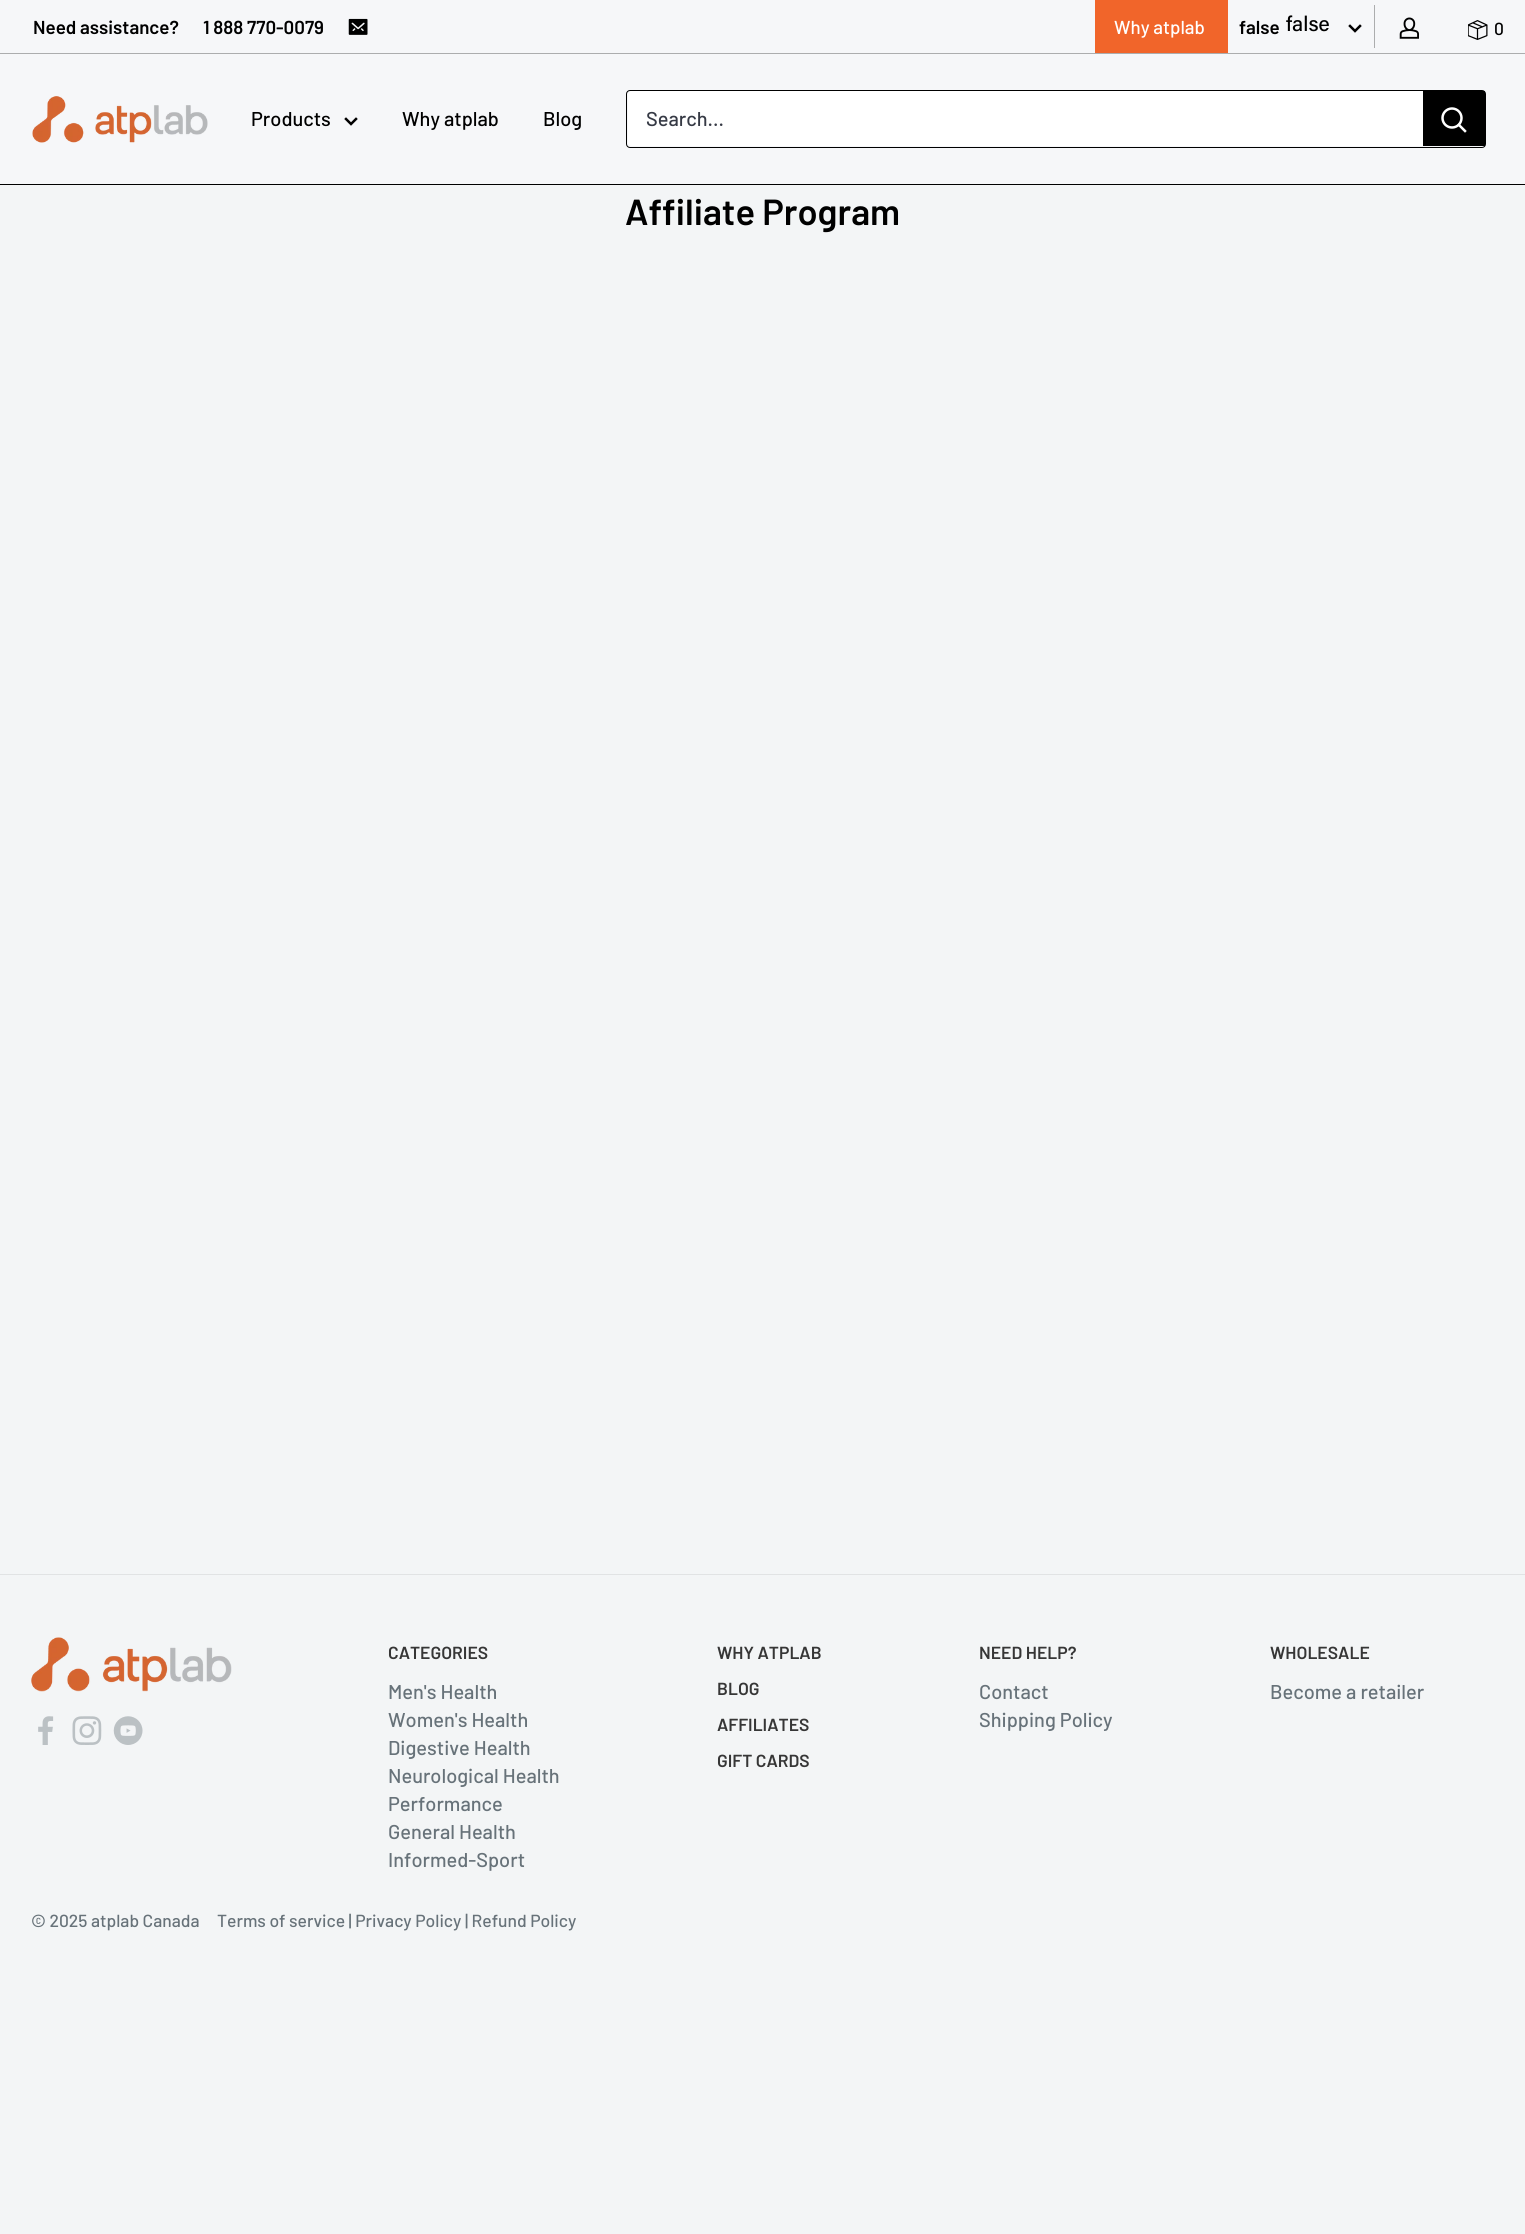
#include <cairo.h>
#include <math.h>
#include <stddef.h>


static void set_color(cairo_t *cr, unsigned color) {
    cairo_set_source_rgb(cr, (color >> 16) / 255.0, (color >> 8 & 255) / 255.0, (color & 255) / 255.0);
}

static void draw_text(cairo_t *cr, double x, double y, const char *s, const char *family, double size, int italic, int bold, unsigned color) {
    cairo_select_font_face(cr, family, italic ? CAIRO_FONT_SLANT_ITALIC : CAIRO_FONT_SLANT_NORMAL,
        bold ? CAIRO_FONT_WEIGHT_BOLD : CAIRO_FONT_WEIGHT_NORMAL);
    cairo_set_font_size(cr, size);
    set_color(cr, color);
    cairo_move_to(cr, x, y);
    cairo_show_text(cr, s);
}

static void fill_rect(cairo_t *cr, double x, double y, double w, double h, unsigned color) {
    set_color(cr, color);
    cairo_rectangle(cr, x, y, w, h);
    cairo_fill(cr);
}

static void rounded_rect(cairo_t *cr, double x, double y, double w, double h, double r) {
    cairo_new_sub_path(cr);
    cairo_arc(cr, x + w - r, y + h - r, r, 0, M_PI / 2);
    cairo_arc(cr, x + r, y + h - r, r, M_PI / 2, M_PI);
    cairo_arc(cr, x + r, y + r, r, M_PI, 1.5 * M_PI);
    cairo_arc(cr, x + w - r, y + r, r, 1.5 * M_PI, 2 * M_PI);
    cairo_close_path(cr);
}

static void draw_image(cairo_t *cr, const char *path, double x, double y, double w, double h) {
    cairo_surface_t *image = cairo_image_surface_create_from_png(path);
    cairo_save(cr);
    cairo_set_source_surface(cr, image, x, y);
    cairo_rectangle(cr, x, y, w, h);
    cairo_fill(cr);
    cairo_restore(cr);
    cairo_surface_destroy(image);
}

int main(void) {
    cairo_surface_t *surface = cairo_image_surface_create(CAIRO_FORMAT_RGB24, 1525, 2234);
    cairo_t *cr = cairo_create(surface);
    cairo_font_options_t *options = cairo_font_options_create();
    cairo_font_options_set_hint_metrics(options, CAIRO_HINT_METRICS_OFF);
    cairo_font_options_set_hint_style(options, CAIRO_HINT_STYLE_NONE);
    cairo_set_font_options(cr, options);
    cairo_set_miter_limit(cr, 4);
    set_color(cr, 0xF3F5F6);
    cairo_paint(cr);
    fill_rect(cr, 0, 0, 1525, 53, 0xF6F7F9);
    fill_rect(cr, 0, 53, 1525, 1, 0xACADAE);
    draw_text(cr, 33, 34, "Need assistance?", "Barlow SemiBold", 18.75, 0, 0, 0x000000);
    draw_text(cr, 203, 34, "1 888 770-0079", "Barlow SemiBold", 18.75, 0, 0, 0x000000);
    draw_image(cr, "assets/img1.png", 348, 18, 20, 17);
    fill_rect(cr, 1095, 0, 133, 53, 0xF1652A);
    draw_text(cr, 1114, 34, "Why atplab", "Barlow Medium", 18.75, 0, 0, 0xFFFFFF);
    draw_text(cr, 1239, 34, "false", "Barlow SemiBold", 18.75, 0, 0, 0x000000);
    draw_text(cr, 1286, 31, "false", "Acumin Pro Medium", 21, 0, 0, 0x000000);
    cairo_new_path(cr);
    cairo_move_to(cr, 1360, 26);
    cairo_line_to(cr, 1355, 31);
    cairo_line_to(cr, 1350, 26);
    cairo_set_line_width(cr, 2.5);
    cairo_set_line_cap(cr, CAIRO_LINE_CAP_SQUARE);
    cairo_stroke(cr);
    fill_rect(cr, 1374, 5, 1, 43, 0xACADAE);
    draw_image(cr, "assets/img2.png", 1399, 17, 20, 22);
    draw_image(cr, "assets/img3.png", 1468, 20, 20, 20);
    draw_text(cr, 1494, 35, "0", "Barlow Medium", 17.5, 0, 0, 0x000000);
    fill_rect(cr, 0, 54, 1525, 130, 0xF6F7F9);
    fill_rect(cr, 0, 184, 1525, 1, 0x000000);
    draw_image(cr, "assets/img4.png", 32, 96, 176, 47);
    draw_text(cr, 251, 126, "Products", "Barlow Medium", 20, 0, 0, 0x000000);
    cairo_new_path(cr);
    cairo_move_to(cr, 356, 119);
    cairo_line_to(cr, 351, 124);
    cairo_line_to(cr, 346, 119);
    cairo_stroke(cr);
    draw_text(cr, 402, 126, "Why atplab", "Barlow Medium", 20, 0, 0, 0x000000);
    draw_text(cr, 543, 126, "Blog", "Barlow Medium", 20, 0, 0, 0x000000);
    rounded_rect(cr, 626.5, 90.5, 859, 57, 3.5);
    cairo_set_line_width(cr, 1);
    cairo_set_line_cap(cr, CAIRO_LINE_CAP_BUTT);
    cairo_stroke(cr);
    set_color(cr, 0xFFFFFF);
    rounded_rect(cr, 628, 91, 857, 55, 4);
    cairo_fill(cr);
    draw_text(cr, 646, 126, "Search...", "Barlow Medium", 20, 0, 0, 0x363A45);
    fill_rect(cr, 1423, 91, 62, 55, 0x000000);
    cairo_new_path(cr);
    cairo_move_to(cr, 1465, 131);
    cairo_line_to(cr, 1459, 125);
    set_color(cr, 0xFFFFFF);
    cairo_set_line_width(cr, 2.5);
    cairo_set_line_cap(cr, CAIRO_LINE_CAP_SQUARE);
    cairo_stroke(cr);
    cairo_arc(cr, 1452, 118, 9.5, 0, 2 * M_PI);
    cairo_set_line_cap(cr, CAIRO_LINE_CAP_BUTT);
    cairo_stroke(cr);
    draw_text(cr, 625, 225, "Affiliate Program", "Barlow SemiBold", 36.25, 0, 0, 0x000000);
    fill_rect(cr, 0, 1574, 1525, 1, 0xE1E3E4);
    draw_image(cr, "assets/img5.png", 31, 1637, 201, 55);
    draw_image(cr, "assets/img6.png", 38, 1716, 16, 29);
    draw_image(cr, "assets/img7.png", 72, 1716, 30, 29);
    draw_image(cr, "assets/img8.png", 113, 1716, 30, 29);
    draw_text(cr, 388, 1659, "CATEGORIES", "Barlow SemiBold", 17.5, 0, 0, 0x363636);
    draw_text(cr, 388, 1699, "Men's Health", "Barlow Medium", 20, 0, 0, 0x677279);
    draw_text(cr, 388, 1727, "Women's Health", "Barlow Medium", 20, 0, 0, 0x677279);
    draw_text(cr, 388, 1755, "Digestive Health", "Barlow Medium", 20, 0, 0, 0x677279);
    draw_text(cr, 388, 1783, "Neurological Health", "Barlow Medium", 20, 0, 0, 0x677279);
    draw_text(cr, 388, 1811, "Performance", "Barlow Medium", 20, 0, 0, 0x677279);
    draw_text(cr, 388, 1839, "General Health", "Barlow Medium", 20, 0, 0, 0x677279);
    draw_text(cr, 388, 1867, "Informed-Sport", "Barlow Medium", 20, 0, 0, 0x677279);
    draw_text(cr, 717, 1659, "WHY ATPLAB", "Barlow SemiBold", 17.5, 0, 0, 0x363636);
    draw_text(cr, 717, 1695, "BLOG", "Barlow SemiBold", 17.5, 0, 0, 0x363636);
    draw_text(cr, 717, 1731, "AFFILIATES", "Barlow SemiBold", 17.5, 0, 0, 0x363636);
    draw_text(cr, 717, 1767, "GIFT CARDS", "Barlow SemiBold", 17.5, 0, 0, 0x363636);
    draw_text(cr, 979, 1659, "NEED HELP?", "Barlow SemiBold", 17.5, 0, 0, 0x363636);
    draw_text(cr, 979, 1699, "Contact", "Barlow Medium", 20, 0, 0, 0x677279);
    draw_text(cr, 979, 1727, "Shipping Policy", "Barlow Medium", 20, 0, 0, 0x677279);
    draw_text(cr, 1270, 1659, "WHOLESALE", "Barlow SemiBold", 17.5, 0, 0, 0x363636);
    draw_text(cr, 1270, 1699, "Become a retailer", "Barlow Medium", 20, 0, 0, 0x677279);
    draw_text(cr, 31, 1927, "© 2025 atplab Canada", "Barlow Medium", 17.5, 0, 0, 0x677279);
    draw_text(cr, 217, 1927, "Terms of service | Privacy Policy | Refund Policy", "Barlow Medium", 17.5, 0, 0, 0x677279);
    cairo_surface_write_to_png(surface, "output.png");
    cairo_font_options_destroy(options);
    cairo_destroy(cr);
    cairo_surface_destroy(surface);
    return 0;
}
